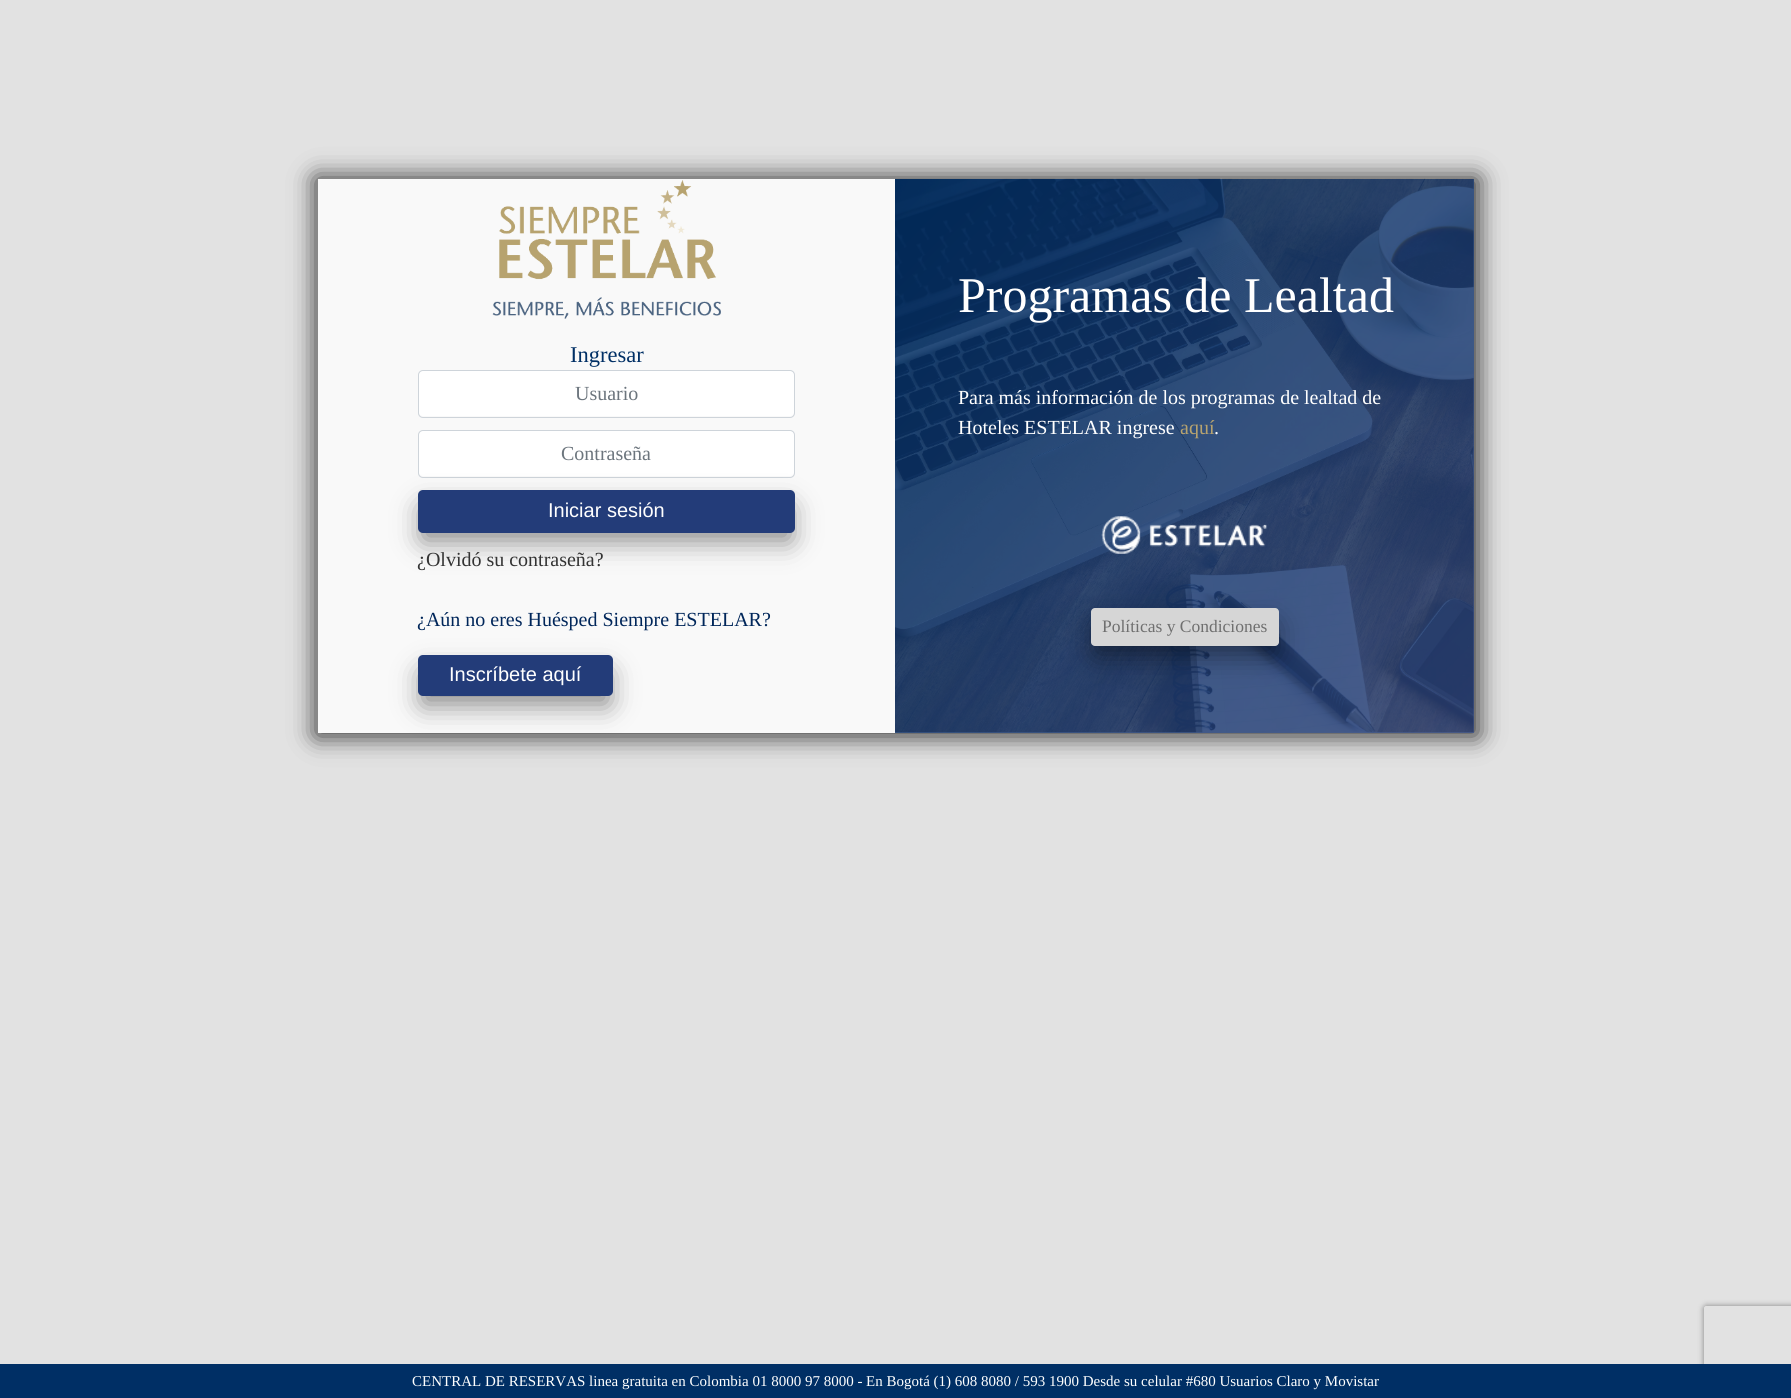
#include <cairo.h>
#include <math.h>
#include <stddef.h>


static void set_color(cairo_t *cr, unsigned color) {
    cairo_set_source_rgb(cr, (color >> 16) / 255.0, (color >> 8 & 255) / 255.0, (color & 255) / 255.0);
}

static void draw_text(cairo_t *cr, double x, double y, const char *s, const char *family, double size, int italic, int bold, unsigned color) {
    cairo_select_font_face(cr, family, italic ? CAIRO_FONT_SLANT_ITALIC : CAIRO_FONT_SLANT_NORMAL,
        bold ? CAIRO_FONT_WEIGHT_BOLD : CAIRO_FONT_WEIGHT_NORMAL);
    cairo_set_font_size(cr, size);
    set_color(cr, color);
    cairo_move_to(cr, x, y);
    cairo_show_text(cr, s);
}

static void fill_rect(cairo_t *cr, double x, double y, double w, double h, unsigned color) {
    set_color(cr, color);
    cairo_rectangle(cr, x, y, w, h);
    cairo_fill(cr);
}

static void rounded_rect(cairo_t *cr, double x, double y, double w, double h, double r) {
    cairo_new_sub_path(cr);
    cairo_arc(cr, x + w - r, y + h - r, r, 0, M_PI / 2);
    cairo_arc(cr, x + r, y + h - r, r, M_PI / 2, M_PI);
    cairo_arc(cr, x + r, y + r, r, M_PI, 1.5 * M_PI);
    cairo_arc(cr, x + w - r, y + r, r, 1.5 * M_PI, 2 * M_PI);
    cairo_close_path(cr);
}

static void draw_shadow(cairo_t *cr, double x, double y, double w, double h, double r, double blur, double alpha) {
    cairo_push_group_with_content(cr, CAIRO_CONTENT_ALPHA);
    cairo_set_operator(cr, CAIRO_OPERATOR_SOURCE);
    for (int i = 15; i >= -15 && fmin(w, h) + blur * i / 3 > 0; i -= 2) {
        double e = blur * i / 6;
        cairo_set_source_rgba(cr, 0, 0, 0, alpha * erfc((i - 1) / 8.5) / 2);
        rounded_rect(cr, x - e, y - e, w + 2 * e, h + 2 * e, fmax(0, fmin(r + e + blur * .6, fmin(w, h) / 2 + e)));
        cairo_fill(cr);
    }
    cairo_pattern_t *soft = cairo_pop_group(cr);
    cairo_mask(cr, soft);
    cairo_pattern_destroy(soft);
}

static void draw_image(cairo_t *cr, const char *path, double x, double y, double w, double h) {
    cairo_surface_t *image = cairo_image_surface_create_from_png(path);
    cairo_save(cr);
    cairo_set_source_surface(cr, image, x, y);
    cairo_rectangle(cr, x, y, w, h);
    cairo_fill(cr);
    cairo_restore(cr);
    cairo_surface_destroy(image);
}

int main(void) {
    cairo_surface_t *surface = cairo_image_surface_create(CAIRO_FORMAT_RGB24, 1791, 1398);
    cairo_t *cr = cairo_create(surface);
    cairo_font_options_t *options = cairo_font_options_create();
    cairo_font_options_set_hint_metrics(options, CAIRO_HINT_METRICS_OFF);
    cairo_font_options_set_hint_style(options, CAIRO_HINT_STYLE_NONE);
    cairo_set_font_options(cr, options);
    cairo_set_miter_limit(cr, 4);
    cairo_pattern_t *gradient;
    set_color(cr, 0xE2E2E2);
    cairo_paint(cr);
    set_color(cr, 0x2D2D2D);
    draw_shadow(cr, 316, 178, 1162, 558, 0, 12.5, 1);
    fill_rect(cr, 318, 179, 1156, 554, 0xF9F9F9);
    draw_image(cr, "assets/img1.png", 492, 180, 229, 139);
    draw_text(cr, 570, 362, "Ingresar", "Liberation Serif", 22.5, 0, 0, 0x002F65);
    set_color(cr, 0xFFFFFF);
    rounded_rect(cr, 419, 371, 375, 45, 4);
    cairo_fill(cr);
    rounded_rect(cr, 418.5, 370.5, 376, 47, 4.5);
    set_color(cr, 0xCED4DA);
    cairo_set_line_width(cr, 1);
    cairo_stroke(cr);
    draw_text(cr, 575, 400, "Usuario", "Liberation Serif", 20, 0, 0, 0x6C757D);
    set_color(cr, 0xFFFFFF);
    rounded_rect(cr, 419, 431, 375, 45, 4);
    cairo_fill(cr);
    rounded_rect(cr, 418.5, 430.5, 376, 47, 4.5);
    set_color(cr, 0xCED4DA);
    cairo_stroke(cr);
    draw_text(cr, 561, 460, "Contraseña", "Liberation Serif", 20, 0, 0, 0x6C757D);
    set_color(cr, 0x000000);
    draw_shadow(cr, 423, 508, 367, 32, 0, 14, 0.48);
    set_color(cr, 0x233C79);
    rounded_rect(cr, 418, 490, 377, 43, 5);
    cairo_fill(cr);
    draw_text(cr, 548, 517, "Iniciar sesión", "Liberation Sans", 20, 0, 0, 0xFFFFFF);
    draw_text(cr, 417, 566, "¿Olvidó su contraseña?", "Liberation Serif", 20, 0, 0, 0x333333);
    draw_text(cr, 417, 626, "¿Aún no eres Huésped Siempre ESTELAR?", "Liberation Serif", 20, 0, 0, 0x00265A);
    set_color(cr, 0x000000);
    draw_shadow(cr, 423, 673, 185, 31, 0, 14, 0.48);
    set_color(cr, 0x233C79);
    rounded_rect(cr, 418, 655, 195, 41, 5);
    cairo_fill(cr);
    draw_text(cr, 449, 681, "Inscríbete aquí", "Liberation Sans", 20, 0, 0, 0xFFFFFF);
    draw_image(cr, "assets/img2.png", 895, 178, 579, 555);
    gradient = cairo_pattern_create_linear(901, 173, 1468, 739);
    cairo_pattern_add_color_stop_rgba(gradient, 0, 0, 0.184, 0.396, 0.85);
    cairo_pattern_add_color_stop_rgba(gradient, 1, 0.173, 0.259, 0.467, 0.85);
    cairo_set_source(cr, gradient);
    cairo_pattern_destroy(gradient);
    cairo_rectangle(cr, 895, 179, 579, 554);
    cairo_fill(cr);
    draw_text(cr, 958, 312, "Programas de Lealtad", "Liberation Serif", 50, 0, 0, 0xFFFFFF);
    draw_text(cr, 958, 404, "Para más información de los programas de lealtad de", "Liberation Serif", 20, 0, 0, 0xFFFFFF);
    draw_text(cr, 958, 434, "Hoteles ESTELAR ingrese", "Liberation Serif", 20, 0, 0, 0xFFFFFF);
    draw_text(cr, 1180, 434, "aquí", "Liberation Serif", 20, 0, 0, 0xB7A36F);
    draw_text(cr, 1214, 434, ".", "Liberation Serif", 20, 0, 0, 0xFFFFFF);
    draw_image(cr, "assets/img3.png", 1101, 516, 166, 38);
    set_color(cr, 0x000000);
    draw_shadow(cr, 1096, 625, 178, 29, 0, 14, 0.48);
    set_color(cr, 0xD6D6D6);
    rounded_rect(cr, 1091, 608, 188, 38, 4);
    cairo_fill(cr);
    draw_text(cr, 1102, 632, "Políticas y Condiciones", "Liberation Serif", 17.5, 0, 0, 0x6F6F6F);
    cairo_save(cr);
    cairo_set_fill_rule(cr, CAIRO_FILL_RULE_EVEN_ODD);
    cairo_new_path(cr);
    cairo_move_to(cr, 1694, 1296);
    cairo_line_to(cr, 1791, 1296);
    cairo_line_to(cr, 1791, 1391);
    cairo_line_to(cr, 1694, 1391);
    cairo_close_path(cr);
    cairo_move_to(cr, 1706.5, 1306);
    cairo_line_to(cr, 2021.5, 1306);
    cairo_curve_to(cr, 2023, 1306, 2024, 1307, 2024, 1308.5);
    cairo_line_to(cr, 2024, 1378.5);
    cairo_curve_to(cr, 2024, 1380, 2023, 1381, 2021.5, 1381);
    cairo_line_to(cr, 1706.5, 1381);
    cairo_curve_to(cr, 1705, 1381, 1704, 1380, 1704, 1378.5);
    cairo_line_to(cr, 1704, 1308.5);
    cairo_curve_to(cr, 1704, 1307, 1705, 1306, 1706.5, 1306);
    cairo_close_path(cr);
    cairo_clip(cr);
    set_color(cr, 0x808080);
    draw_shadow(cr, 1704, 1306, 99, 75, 2.5, 3, 1);
    cairo_restore(cr);
    fill_rect(cr, 0, 1364, 1791, 34, 0x002F65);
    draw_text(cr, 412, 1386, "CENTRAL DE RESERVAS linea gratuita en Colombia 01 8000 97 8000 - En Bogotá (1) 608 8080 / 593 1900 Desde su celular #680 Usuarios Claro y Movistar", "Liberation Serif", 15, 0, 0, 0xFFFFFF);
    cairo_surface_write_to_png(surface, "output.png");
    cairo_font_options_destroy(options);
    cairo_destroy(cr);
    cairo_surface_destroy(surface);
    return 0;
}
